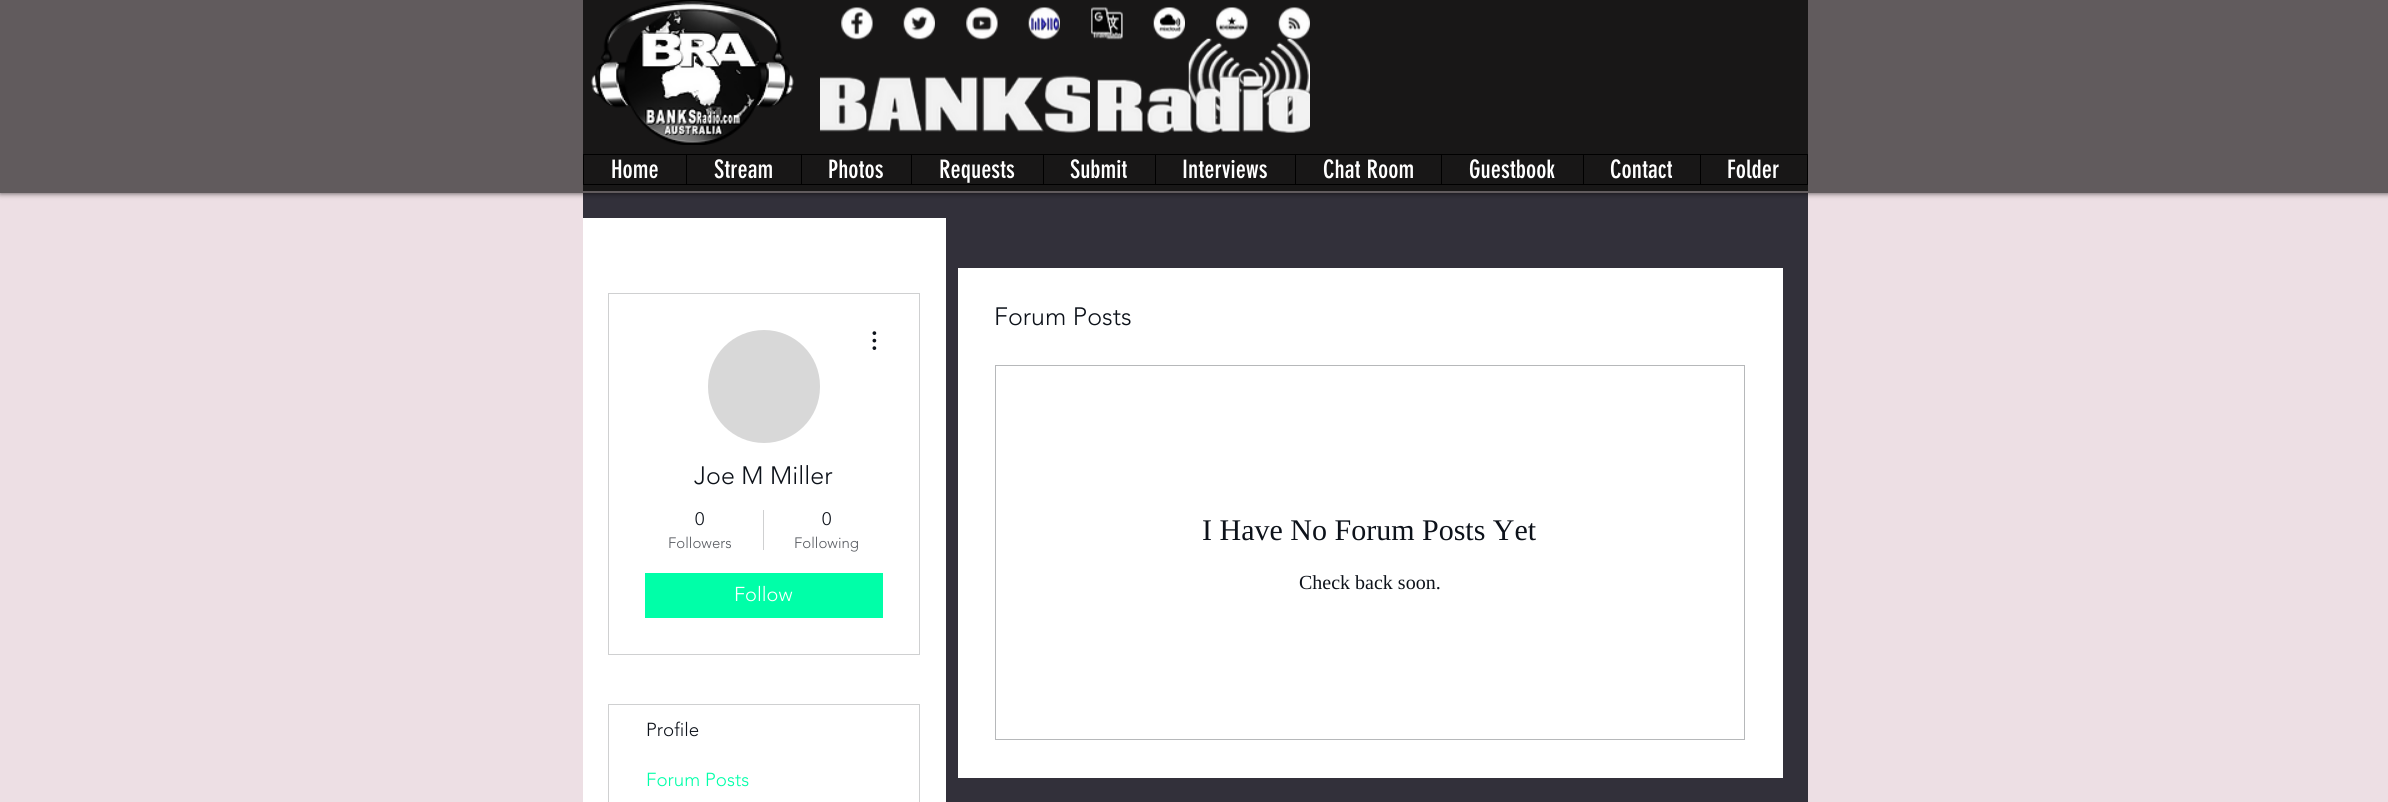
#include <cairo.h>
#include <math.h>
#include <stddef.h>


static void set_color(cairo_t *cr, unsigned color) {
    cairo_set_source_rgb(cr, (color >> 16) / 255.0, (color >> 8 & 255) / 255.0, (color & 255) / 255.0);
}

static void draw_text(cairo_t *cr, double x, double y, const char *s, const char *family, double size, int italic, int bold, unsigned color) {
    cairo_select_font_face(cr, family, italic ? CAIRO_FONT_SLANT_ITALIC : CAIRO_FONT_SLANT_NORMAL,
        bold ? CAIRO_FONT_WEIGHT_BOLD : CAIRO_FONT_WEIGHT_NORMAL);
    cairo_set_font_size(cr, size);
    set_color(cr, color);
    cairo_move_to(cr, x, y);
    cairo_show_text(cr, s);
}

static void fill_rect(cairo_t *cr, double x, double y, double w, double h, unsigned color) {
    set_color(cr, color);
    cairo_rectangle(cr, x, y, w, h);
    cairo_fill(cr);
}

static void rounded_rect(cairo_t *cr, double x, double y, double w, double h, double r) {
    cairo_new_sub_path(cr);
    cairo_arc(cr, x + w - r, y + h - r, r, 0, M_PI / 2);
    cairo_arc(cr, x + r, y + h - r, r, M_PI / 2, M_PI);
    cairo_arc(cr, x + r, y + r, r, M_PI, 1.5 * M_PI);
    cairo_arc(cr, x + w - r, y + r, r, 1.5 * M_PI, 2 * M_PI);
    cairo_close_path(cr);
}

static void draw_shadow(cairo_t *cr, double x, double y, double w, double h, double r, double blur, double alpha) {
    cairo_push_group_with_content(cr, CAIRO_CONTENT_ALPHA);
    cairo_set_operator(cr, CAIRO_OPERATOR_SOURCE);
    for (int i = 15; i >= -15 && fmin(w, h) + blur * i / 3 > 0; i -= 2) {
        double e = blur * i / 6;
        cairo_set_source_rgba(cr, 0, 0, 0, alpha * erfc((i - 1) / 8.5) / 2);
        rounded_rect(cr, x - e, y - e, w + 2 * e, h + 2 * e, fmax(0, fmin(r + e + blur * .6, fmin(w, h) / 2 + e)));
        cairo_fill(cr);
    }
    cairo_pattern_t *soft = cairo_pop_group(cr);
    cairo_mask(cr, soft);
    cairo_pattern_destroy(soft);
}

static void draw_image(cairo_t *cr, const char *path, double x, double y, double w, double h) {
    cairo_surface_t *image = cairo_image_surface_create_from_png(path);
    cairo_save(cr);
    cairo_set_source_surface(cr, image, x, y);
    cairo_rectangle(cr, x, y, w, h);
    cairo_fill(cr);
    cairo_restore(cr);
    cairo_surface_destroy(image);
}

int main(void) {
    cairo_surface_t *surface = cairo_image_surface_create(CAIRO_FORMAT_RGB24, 2388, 802);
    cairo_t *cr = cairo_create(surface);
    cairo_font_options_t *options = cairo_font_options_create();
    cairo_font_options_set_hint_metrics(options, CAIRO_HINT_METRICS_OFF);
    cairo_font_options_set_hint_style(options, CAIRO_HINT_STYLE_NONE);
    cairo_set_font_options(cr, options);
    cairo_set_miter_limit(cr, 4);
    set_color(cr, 0xEDDFE4);
    cairo_paint(cr);
    fill_rect(cr, 583, 193, 1225, 609, 0x32303A);
    cairo_save(cr);
    cairo_set_fill_rule(cr, CAIRO_FILL_RULE_EVEN_ODD);
    cairo_new_path(cr);
    cairo_move_to(cr, 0, 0);
    cairo_line_to(cr, 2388, 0);
    cairo_line_to(cr, 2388, 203);
    cairo_line_to(cr, 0, 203);
    cairo_close_path(cr);
    cairo_move_to(cr, 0, 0);
    cairo_line_to(cr, 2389, 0);
    cairo_line_to(cr, 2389, 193);
    cairo_line_to(cr, 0, 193);
    cairo_close_path(cr);
    cairo_clip(cr);
    set_color(cr, 0x000000);
    draw_shadow(cr, 0, 0, 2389, 193, 0, 3, 0.7);
    cairo_restore(cr);
    cairo_set_source_rgba(cr, 0, 0, 0, 0.59);
    cairo_rectangle(cr, 0, 0, 2388, 193);
    cairo_fill(cr);
    fill_rect(cr, 583, 0, 1225, 191, 0x181717);
    draw_image(cr, "assets/img1.png", 591, 0, 203, 145);
    draw_image(cr, "assets/img2.png", 841, 7, 32, 33);
    draw_image(cr, "assets/img3.png", 903, 7, 32, 33);
    draw_image(cr, "assets/img4.png", 966, 7, 32, 33);
    draw_image(cr, "assets/img5.png", 1028, 7, 32, 33);
    draw_image(cr, "assets/img6.png", 1091, 7, 32, 33);
    draw_image(cr, "assets/img7.png", 1153, 7, 32, 33);
    draw_image(cr, "assets/img8.png", 1216, 7, 32, 33);
    draw_image(cr, "assets/img9.png", 1278, 7, 32, 33);
    draw_image(cr, "assets/img10.png", 820, 75, 270, 58);
    draw_image(cr, "assets/img11.png", 1188, 38, 122, 81);
    draw_image(cr, "assets/img12.png", 1097, 75, 213, 58);
    cairo_rectangle(cr, 583.5, 154.5, 1224, 30);
    set_color(cr, 0x000000);
    cairo_set_line_width(cr, 1);
    cairo_stroke(cr);
    draw_text(cr, 611, 178, "Home", "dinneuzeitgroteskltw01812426", 25, 0, 0, 0xFFFFFF);
    fill_rect(cr, 686, 155, 1, 29, 0x000000);
    draw_text(cr, 714, 178, "Stream", "dinneuzeitgroteskltw01812426", 25, 0, 0, 0xFFFFFF);
    fill_rect(cr, 801, 155, 1, 29, 0x000000);
    draw_text(cr, 828, 178, "Photos", "dinneuzeitgroteskltw01812426", 25, 0, 0, 0xFFFFFF);
    fill_rect(cr, 911, 155, 1, 29, 0x000000);
    draw_text(cr, 939, 178, "Requests", "dinneuzeitgroteskltw01812426", 25, 0, 0, 0xFFFFFF);
    fill_rect(cr, 1043, 155, 1, 29, 0x000000);
    draw_text(cr, 1070, 178, "Submit", "dinneuzeitgroteskltw01812426", 25, 0, 0, 0xFFFFFF);
    fill_rect(cr, 1155, 155, 1, 29, 0x000000);
    draw_text(cr, 1182, 178, "Interviews", "dinneuzeitgroteskltw01812426", 25, 0, 0, 0xFFFFFF);
    fill_rect(cr, 1295, 155, 1, 29, 0x000000);
    draw_text(cr, 1323, 178, "Chat Room", "dinneuzeitgroteskltw01812426", 25, 0, 0, 0xFFFFFF);
    fill_rect(cr, 1441, 155, 1, 29, 0x000000);
    draw_text(cr, 1469, 178, "Guestbook", "dinneuzeitgroteskltw01812426", 25, 0, 0, 0xFFFFFF);
    fill_rect(cr, 1583, 155, 1, 29, 0x000000);
    draw_text(cr, 1610, 178, "Contact", "dinneuzeitgroteskltw01812426", 25, 0, 0, 0xFFFFFF);
    fill_rect(cr, 1700, 155, 1, 29, 0x000000);
    draw_text(cr, 1727, 178, "Folder", "dinneuzeitgroteskltw01812426", 25, 0, 0, 0xFFFFFF);
    fill_rect(cr, 583, 218, 363, 584, 0xFFFFFF);
    cairo_rectangle(cr, 608.5, 293.5, 311, 361);
    set_color(cr, 0xCFD0D1);
    cairo_stroke(cr);
    set_color(cr, 0xD8D8D8);
    rounded_rect(cr, 708, 330, 112, 113, 56);
    cairo_fill(cr);
    draw_image(cr, "assets/img13.png", 872, 331, 5, 19);
    draw_text(cr, 694, 484, "Joe M Miller", "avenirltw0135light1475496 Light", 25, 0, 0, 0x0D121A);
    draw_text(cr, 695, 525, "0", "avenirltw0135light1475496 Light", 18, 0, 0, 0x0D121A);
    draw_text(cr, 668, 548, "Followers", "avenirltw0135light1475496 Light", 15, 0, 0, 0x56595F);
    fill_rect(cr, 763, 510, 1, 40, 0xCFD0D1);
    draw_text(cr, 822, 525, "0", "avenirltw0135light1475496 Light", 18, 0, 0, 0x0D121A);
    draw_text(cr, 794, 548, "Following", "avenirltw0135light1475496 Light", 15, 0, 0, 0x56595F);
    fill_rect(cr, 645, 573, 238, 45, 0x00FFA8);
    draw_text(cr, 734, 601, "Follow", "avenirltw0135light1475496 Light", 20, 0, 0, 0xFFFFFF);
    cairo_rectangle(cr, 608.5, 704.5, 311, 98);
    set_color(cr, 0xCFD0D1);
    cairo_stroke(cr);
    draw_text(cr, 646, 736, "Profile", "avenirltw0135light1475496 Light", 18.75, 0, 0, 0x0D121A);
    draw_text(cr, 646, 786, "Forum Posts", "avenirltw0135light1475496 Light", 18.75, 0, 0, 0x00FFA8);
    fill_rect(cr, 958, 268, 825, 510, 0xFFFFFF);
    draw_text(cr, 994, 325, "Forum Posts", "avenirltw0135light1475496 Light", 25, 0, 0, 0x0D121A);
    cairo_rectangle(cr, 995.5, 365.5, 749, 374);
    set_color(cr, 0xB6B8BA);
    cairo_stroke(cr);
    draw_text(cr, 1202, 540, "I Have No Forum Posts Yet", "Liberation Serif", 30, 0, 0, 0x0D121A);
    draw_text(cr, 1299, 589, "Check back soon.", "Liberation Serif", 20, 0, 0, 0x0D121A);
    cairo_surface_write_to_png(surface, "output.png");
    cairo_font_options_destroy(options);
    cairo_destroy(cr);
    cairo_surface_destroy(surface);
    return 0;
}
